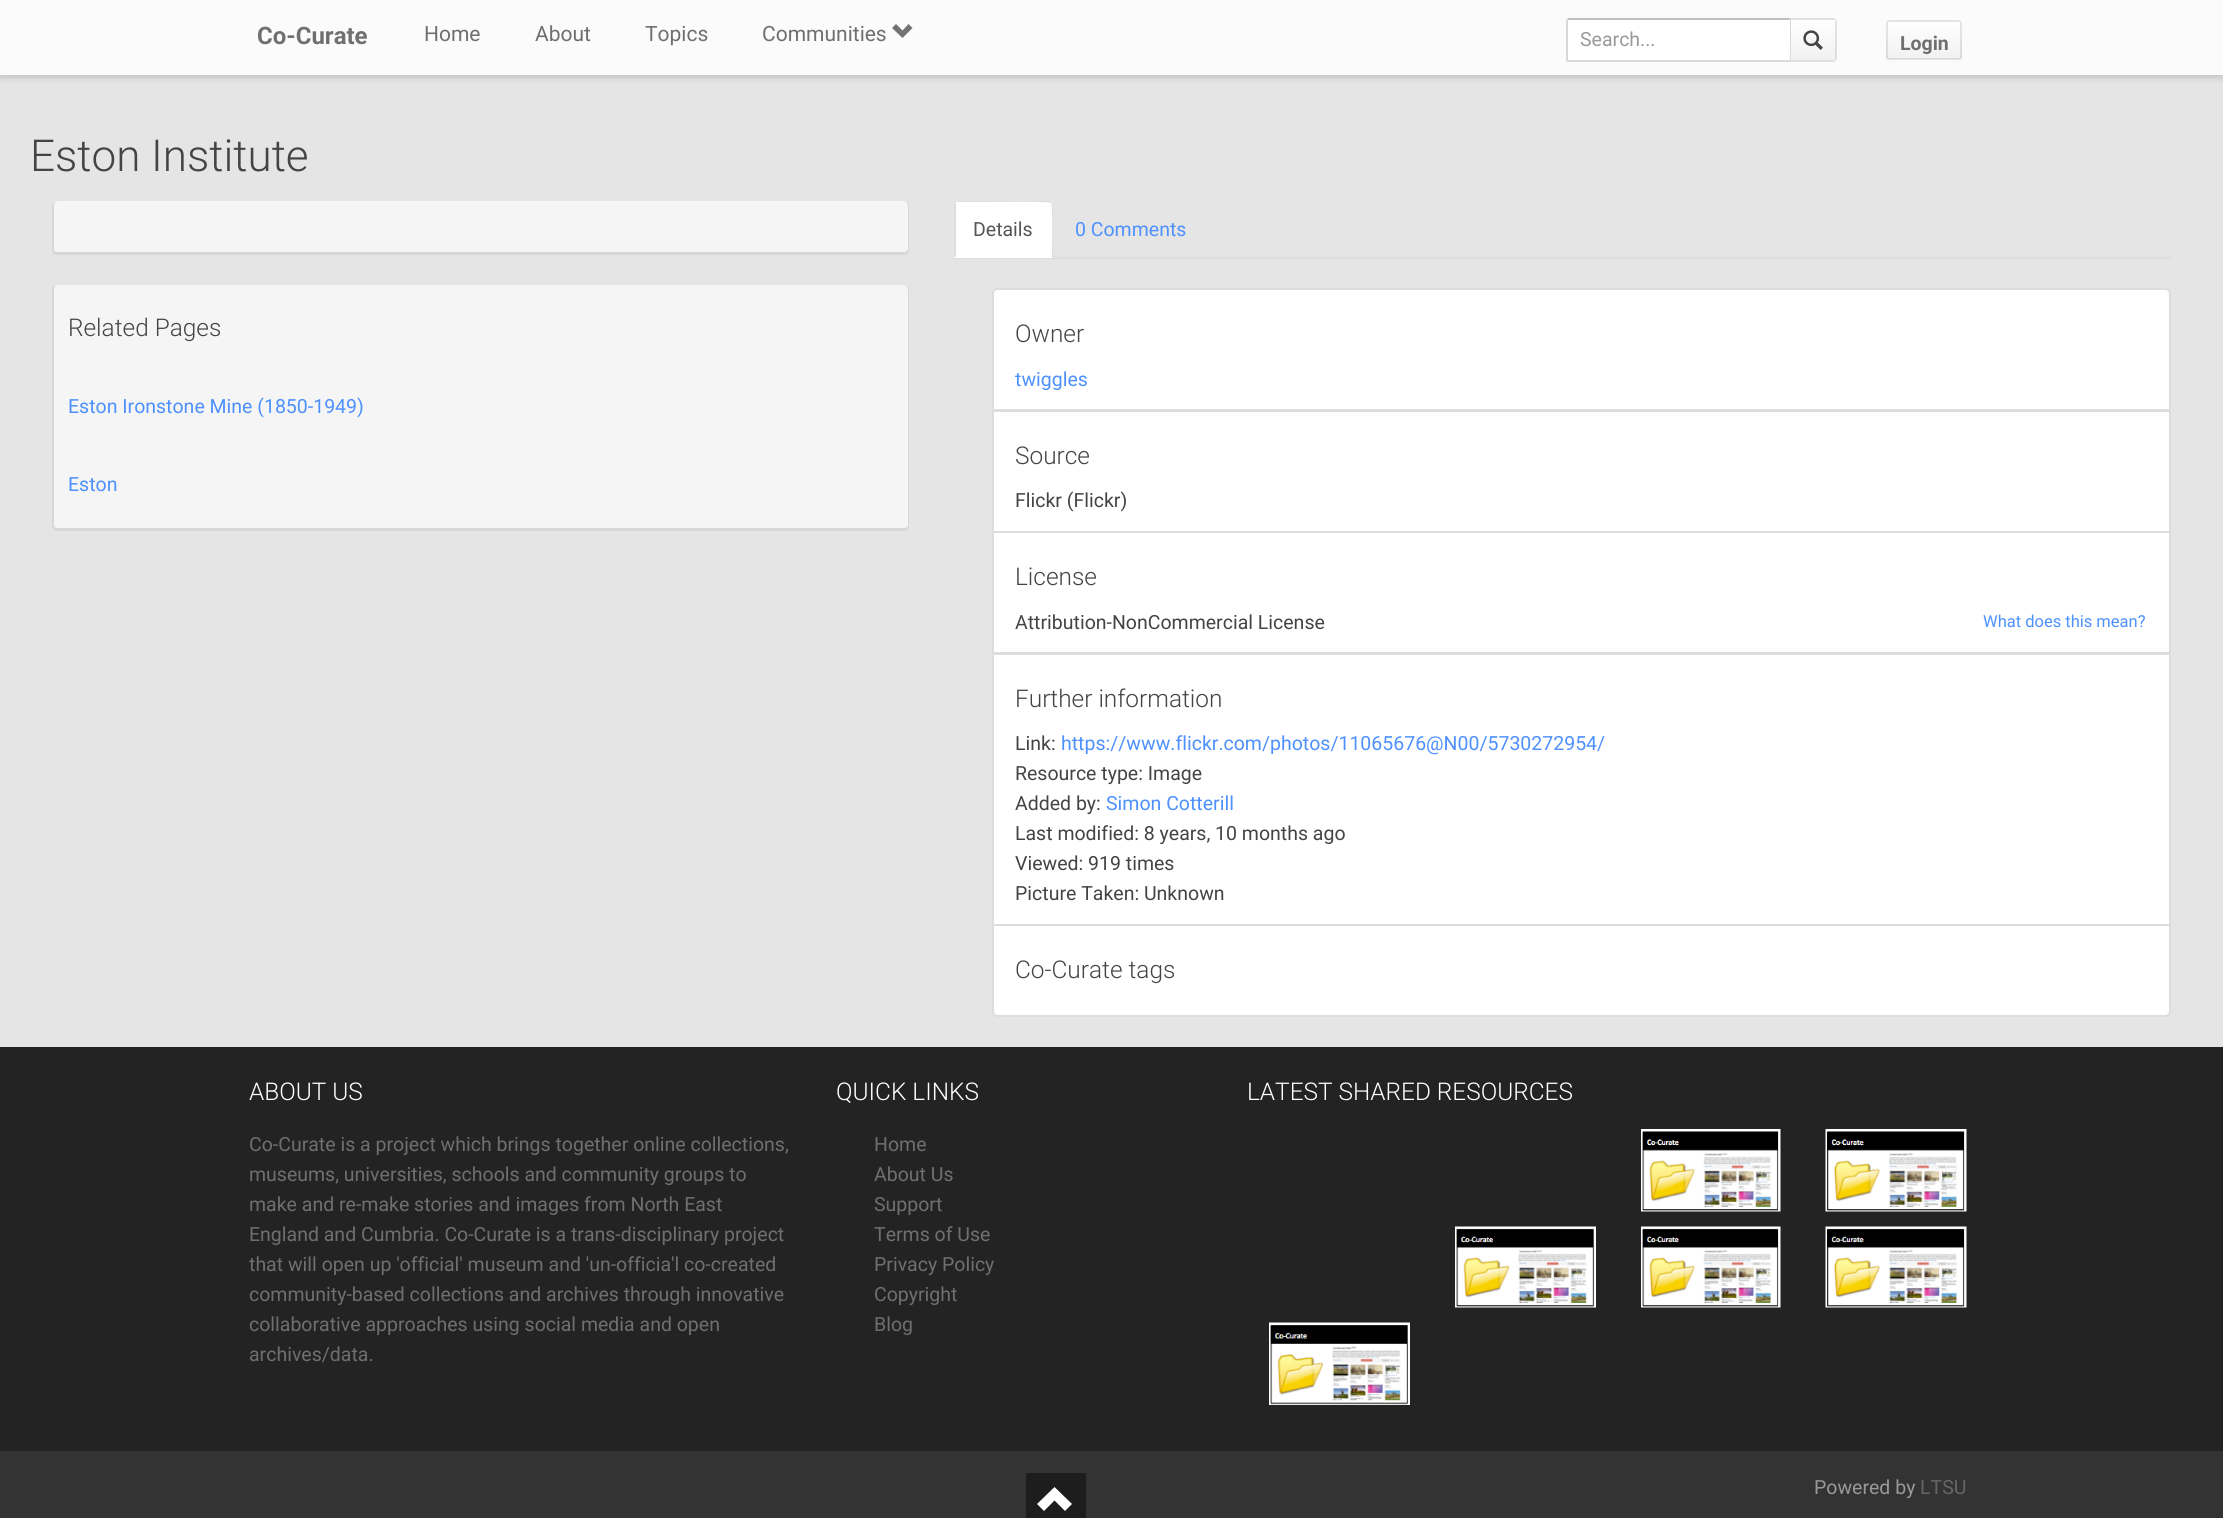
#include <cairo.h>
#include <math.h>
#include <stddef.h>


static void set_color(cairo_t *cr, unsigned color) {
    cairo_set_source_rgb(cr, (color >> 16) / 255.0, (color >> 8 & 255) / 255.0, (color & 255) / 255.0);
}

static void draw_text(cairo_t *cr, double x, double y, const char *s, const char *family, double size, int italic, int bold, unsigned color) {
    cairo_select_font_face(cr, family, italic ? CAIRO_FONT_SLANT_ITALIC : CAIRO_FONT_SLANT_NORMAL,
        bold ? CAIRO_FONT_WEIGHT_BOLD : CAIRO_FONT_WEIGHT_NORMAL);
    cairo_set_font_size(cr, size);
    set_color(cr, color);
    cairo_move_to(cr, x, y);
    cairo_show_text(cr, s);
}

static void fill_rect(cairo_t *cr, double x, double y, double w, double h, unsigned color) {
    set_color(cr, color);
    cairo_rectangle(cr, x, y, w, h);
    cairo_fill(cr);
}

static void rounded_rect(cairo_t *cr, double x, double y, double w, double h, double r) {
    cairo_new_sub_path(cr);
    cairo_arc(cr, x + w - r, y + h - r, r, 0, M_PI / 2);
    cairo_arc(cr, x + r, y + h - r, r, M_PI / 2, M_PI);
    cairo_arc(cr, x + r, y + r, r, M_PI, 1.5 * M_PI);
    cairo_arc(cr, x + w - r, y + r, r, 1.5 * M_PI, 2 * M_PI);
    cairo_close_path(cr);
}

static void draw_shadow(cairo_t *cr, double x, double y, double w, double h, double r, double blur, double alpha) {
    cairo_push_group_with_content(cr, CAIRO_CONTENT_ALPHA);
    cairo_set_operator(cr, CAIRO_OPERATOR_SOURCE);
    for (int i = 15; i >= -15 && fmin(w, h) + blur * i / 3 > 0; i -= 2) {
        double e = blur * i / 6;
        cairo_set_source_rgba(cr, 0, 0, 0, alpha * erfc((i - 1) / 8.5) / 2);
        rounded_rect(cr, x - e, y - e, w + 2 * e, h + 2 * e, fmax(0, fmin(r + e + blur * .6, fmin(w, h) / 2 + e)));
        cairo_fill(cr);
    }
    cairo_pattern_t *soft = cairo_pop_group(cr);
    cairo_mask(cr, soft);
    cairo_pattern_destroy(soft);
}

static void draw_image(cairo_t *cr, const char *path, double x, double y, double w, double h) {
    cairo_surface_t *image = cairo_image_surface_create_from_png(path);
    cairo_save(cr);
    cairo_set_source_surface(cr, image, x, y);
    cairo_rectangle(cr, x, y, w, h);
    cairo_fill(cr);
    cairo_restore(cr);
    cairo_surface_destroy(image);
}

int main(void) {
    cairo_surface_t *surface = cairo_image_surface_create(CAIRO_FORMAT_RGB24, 2223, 1518);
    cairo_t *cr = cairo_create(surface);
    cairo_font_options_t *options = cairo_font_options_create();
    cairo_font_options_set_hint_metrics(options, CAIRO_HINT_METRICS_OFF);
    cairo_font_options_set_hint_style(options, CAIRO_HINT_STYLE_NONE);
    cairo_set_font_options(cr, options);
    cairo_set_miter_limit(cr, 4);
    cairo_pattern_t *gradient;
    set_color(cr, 0xE5E5E5);
    cairo_paint(cr);
    set_color(cr, 0x000000);
    draw_shadow(cr, 0, 3, 2223, 75, 0, 3, 0.15);
    fill_rect(cr, 0, 0, 2223, 75, 0xFBFBFB);
    draw_text(cr, 257, 44, "Co-Curate", "Roboto", 24, 0, 1, 0x6F6F6F);
    draw_text(cr, 424, 41, "Home", "Roboto", 21, 0, 0, 0x6F6F6F);
    draw_text(cr, 535, 41, "About", "Roboto", 21, 0, 0, 0x6F6F6F);
    draw_text(cr, 645, 41, "Topics", "Roboto", 21, 0, 0, 0x6F6F6F);
    draw_text(cr, 762, 41, "Communities", "Roboto", 21, 0, 0, 0x6F6F6F);
    set_color(cr, 0x737373);
    cairo_new_path(cr);
    cairo_move_to(cr, 892, 28);
    cairo_line_to(cr, 902.5, 38);
    cairo_line_to(cr, 912.5, 28);
    cairo_line_to(cr, 908.5, 24);
    cairo_line_to(cr, 902.5, 30.5);
    cairo_line_to(cr, 896, 24);
    cairo_close_path(cr);
    cairo_fill(cr);
    set_color(cr, 0xFFFFFF);
    cairo_new_path(cr);
    cairo_move_to(cr, 1567.5, 18);
    cairo_line_to(cr, 1791, 18);
    cairo_line_to(cr, 1791, 62);
    cairo_line_to(cr, 1567.5, 62);
    cairo_curve_to(cr, 1566.5, 62, 1566, 61.5, 1566, 60.5);
    cairo_line_to(cr, 1566, 19.5);
    cairo_curve_to(cr, 1566, 18.5, 1566.5, 18, 1567.5, 18);
    cairo_close_path(cr);
    cairo_fill(cr);
    set_color(cr, 0xC0C0C0);
    cairo_new_path(cr);
    cairo_move_to(cr, 1568, 18);
    cairo_line_to(cr, 1567, 19);
    cairo_line_to(cr, 1568, 20);
    cairo_line_to(cr, 1789, 20);
    cairo_line_to(cr, 1791, 18);
    cairo_close_path(cr);
    cairo_fill(cr);
    set_color(cr, 0xD9D9D9);
    cairo_new_path(cr);
    cairo_move_to(cr, 1791, 18);
    cairo_line_to(cr, 1789, 20);
    cairo_line_to(cr, 1790, 20);
    cairo_line_to(cr, 1790, 60);
    cairo_line_to(cr, 1791, 62);
    cairo_close_path(cr);
    cairo_fill(cr);
    cairo_new_path(cr);
    cairo_move_to(cr, 1791, 62);
    cairo_line_to(cr, 1567, 62);
    cairo_line_to(cr, 1566, 61);
    cairo_line_to(cr, 1568, 60);
    cairo_line_to(cr, 1790, 60);
    cairo_close_path(cr);
    cairo_fill(cr);
    cairo_new_path(cr);
    cairo_move_to(cr, 1568, 20);
    cairo_line_to(cr, 1567, 19);
    cairo_line_to(cr, 1566, 20);
    cairo_curve_to(cr, 1566, 23, 1566, 60, 1566, 61);
    cairo_line_to(cr, 1568, 60);
    cairo_close_path(cr);
    cairo_fill(cr);
    draw_text(cr, 1580, 46, "Search...", "Roboto", 19.5, 0, 0, 0x999999);
    gradient = cairo_pattern_create_linear(1813, 19, 1813, 60);
    cairo_pattern_add_color_stop_rgba(gradient, 0, 1, 1, 1, 1);
    cairo_pattern_add_color_stop_rgba(gradient, 1, 0.945, 0.945, 0.945, 1);
    cairo_set_source(cr, gradient);
    cairo_pattern_destroy(gradient);
    cairo_rectangle(cr, 1791, 20, 45, 40);
    cairo_fill(cr);
    fill_rect(cr, 1791, 18, 44, 2, 0xE0E0E0);
    cairo_set_source_rgba(cr, 0, 0, 0, 0.1);
    cairo_rectangle(cr, 1835, 20, 2, 40);
    cairo_fill(cr);
    fill_rect(cr, 1791, 60, 44, 2, 0xE0E0E0);
    draw_image(cr, "assets/img1.png", 1803, 30, 20, 20);
    cairo_save(cr);
    rounded_rect(cr, 1886, 20, 76, 40, 3);
    cairo_clip(cr);
    gradient = cairo_pattern_create_linear(1924, 21, 1924, 59);
    cairo_pattern_add_color_stop_rgba(gradient, 0, 1, 1, 1, 1);
    cairo_pattern_add_color_stop_rgba(gradient, 1, 0.945, 0.945, 0.945, 1);
    cairo_set_source(cr, gradient);
    cairo_pattern_destroy(gradient);
    cairo_rectangle(cr, 1886, 21, 76, 38);
    cairo_fill(cr);
    cairo_restore(cr);
    rounded_rect(cr, 1887, 21, 74, 38, 2);
    cairo_set_source_rgba(cr, 0, 0, 0, 0.1);
    cairo_stroke(cr);
    draw_text(cr, 1900, 50, "Login", "Roboto", 19.5, 0, 1, 0x6F6F6F);
    draw_text(cr, 30, 171, "Eston Institute", "Roboto Light", 44, 0, 0, 0x444444);
    set_color(cr, 0xF5F5F5);
    cairo_new_path(cr);
    cairo_move_to(cr, 57, 201);
    cairo_line_to(cr, 904, 201);
    cairo_curve_to(cr, 906, 201, 908, 203, 908, 206);
    cairo_line_to(cr, 908, 250);
    cairo_curve_to(cr, 908, 251, 906, 252, 904, 252);
    cairo_line_to(cr, 57, 252);
    cairo_curve_to(cr, 55, 252, 54, 251, 54, 250);
    cairo_line_to(cr, 54, 206);
    cairo_curve_to(cr, 54, 203, 55, 201, 57, 201);
    cairo_close_path(cr);
    cairo_fill(cr);
    set_color(cr, 0xD8D8D8);
    cairo_set_fill_rule(cr, CAIRO_FILL_RULE_EVEN_ODD);
    cairo_new_path(cr);
    cairo_move_to(cr, 57, 201);
    cairo_line_to(cr, 904, 201);
    cairo_curve_to(cr, 907, 201, 909, 203, 909, 206);
    cairo_line_to(cr, 909, 250);
    cairo_curve_to(cr, 909, 253, 907, 255, 904, 255);
    cairo_line_to(cr, 57, 255);
    cairo_curve_to(cr, 55, 255, 52, 253, 52, 250);
    cairo_line_to(cr, 52, 206);
    cairo_curve_to(cr, 52, 203, 55, 201, 57, 201);
    cairo_close_path(cr);
    cairo_move_to(cr, 57, 201);
    cairo_line_to(cr, 904, 201);
    cairo_curve_to(cr, 906, 201, 908, 203, 908, 206);
    cairo_line_to(cr, 908, 250);
    cairo_curve_to(cr, 908, 251, 906, 252, 904, 252);
    cairo_line_to(cr, 57, 252);
    cairo_curve_to(cr, 55, 252, 54, 251, 54, 250);
    cairo_line_to(cr, 54, 206);
    cairo_curve_to(cr, 54, 203, 55, 201, 57, 201);
    cairo_close_path(cr);
    cairo_fill(cr);
    set_color(cr, 0xF5F5F5);
    cairo_set_fill_rule(cr, CAIRO_FILL_RULE_WINDING);
    cairo_new_path(cr);
    cairo_move_to(cr, 57, 285);
    cairo_line_to(cr, 904, 285);
    cairo_curve_to(cr, 906, 285, 908, 287, 908, 290);
    cairo_line_to(cr, 908, 526);
    cairo_curve_to(cr, 908, 527, 906, 528, 904, 528);
    cairo_line_to(cr, 57, 528);
    cairo_curve_to(cr, 55, 528, 54, 527, 54, 526);
    cairo_line_to(cr, 54, 290);
    cairo_curve_to(cr, 54, 287, 55, 285, 57, 285);
    cairo_close_path(cr);
    cairo_fill(cr);
    set_color(cr, 0xD8D8D8);
    cairo_set_fill_rule(cr, CAIRO_FILL_RULE_EVEN_ODD);
    cairo_new_path(cr);
    cairo_move_to(cr, 57, 285);
    cairo_line_to(cr, 904, 285);
    cairo_curve_to(cr, 907, 285, 909, 287, 909, 290);
    cairo_line_to(cr, 909, 526);
    cairo_curve_to(cr, 909, 529, 907, 531, 904, 531);
    cairo_line_to(cr, 57, 531);
    cairo_curve_to(cr, 55, 531, 52, 529, 52, 526);
    cairo_line_to(cr, 52, 290);
    cairo_curve_to(cr, 52, 287, 55, 285, 57, 285);
    cairo_close_path(cr);
    cairo_move_to(cr, 57, 285);
    cairo_line_to(cr, 904, 285);
    cairo_curve_to(cr, 906, 285, 908, 287, 908, 290);
    cairo_line_to(cr, 908, 526);
    cairo_curve_to(cr, 908, 527, 906, 528, 904, 528);
    cairo_line_to(cr, 57, 528);
    cairo_curve_to(cr, 55, 528, 54, 527, 54, 526);
    cairo_line_to(cr, 54, 290);
    cairo_curve_to(cr, 54, 287, 55, 285, 57, 285);
    cairo_close_path(cr);
    cairo_fill(cr);
    draw_text(cr, 68, 336, "Related Pages", "Roboto Light", 24.4, 0, 0, 0x444444);
    draw_text(cr, 68, 413, "Eston Ironstone Mine (1850-1949)", "Roboto", 19.5, 0, 0, 0x4D90FE);
    draw_text(cr, 68, 491, "Eston", "Roboto", 19.5, 0, 0, 0x4D90FE);
    fill_rect(cr, 954, 257, 1217, 2, 0xDDDDDD);
    set_color(cr, 0xFFFFFF);
    cairo_new_path(cr);
    cairo_move_to(cr, 957, 201);
    cairo_line_to(cr, 1050, 201);
    cairo_curve_to(cr, 1051.5, 201, 1053, 202.5, 1053, 204);
    cairo_line_to(cr, 1053, 258);
    cairo_line_to(cr, 954, 258);
    cairo_line_to(cr, 954, 204);
    cairo_curve_to(cr, 954, 202.5, 955.5, 201, 957, 201);
    cairo_close_path(cr);
    cairo_fill(cr);
    set_color(cr, 0xDDDDDD);
    cairo_set_fill_rule(cr, CAIRO_FILL_RULE_WINDING);
    cairo_new_path(cr);
    cairo_move_to(cr, 957, 201);
    cairo_line_to(cr, 955, 202);
    cairo_line_to(cr, 956, 203);
    cairo_line_to(cr, 957, 202);
    cairo_line_to(cr, 988, 202);
    cairo_curve_to(cr, 995, 202, 1050, 201, 1051, 203);
    cairo_line_to(cr, 1052, 202);
    cairo_line_to(cr, 1050, 201);
    cairo_close_path(cr);
    cairo_fill(cr);
    cairo_new_path(cr);
    cairo_move_to(cr, 1053, 258);
    cairo_curve_to(cr, 1053, 252, 1054, 204, 1052, 202);
    cairo_line_to(cr, 1051, 203);
    cairo_curve_to(cr, 1053, 204, 1052, 250, 1052, 256);
    cairo_line_to(cr, 1051, 256);
    cairo_close_path(cr);
    cairo_fill(cr);
    cairo_new_path(cr);
    cairo_move_to(cr, 954, 258);
    cairo_line_to(cr, 956, 256);
    cairo_line_to(cr, 956, 203);
    cairo_line_to(cr, 955, 202);
    cairo_line_to(cr, 954, 204);
    cairo_close_path(cr);
    cairo_fill(cr);
    draw_text(cr, 973, 236, "Details", "Roboto", 19.5, 0, 0, 0x555555);
    draw_text(cr, 1075, 236, "0 Comments", "Roboto", 19.5, 0, 0, 0x4D90FE);
    set_color(cr, 0xFFFFFF);
    cairo_new_path(cr);
    cairo_move_to(cr, 998, 289);
    cairo_line_to(cr, 2165, 289);
    cairo_curve_to(cr, 2168, 289, 2170, 291, 2170, 294);
    cairo_line_to(cr, 2170, 410);
    cairo_line_to(cr, 993, 410);
    cairo_line_to(cr, 993, 294);
    cairo_curve_to(cr, 993, 291, 995, 289, 998, 289);
    cairo_close_path(cr);
    cairo_fill_preserve(cr);
    set_color(cr, 0xDDDDDD);
    cairo_stroke(cr);
    draw_text(cr, 1015, 342, "Owner", "Roboto Light", 24.4, 0, 0, 0x444444);
    draw_text(cr, 1015, 386, "twiggles", "Roboto", 19.5, 0, 0, 0x4D90FE);
    set_color(cr, 0xFFFFFF);
    cairo_rectangle(cr, 993, 411, 1177, 121);
    cairo_fill_preserve(cr);
    set_color(cr, 0xDDDDDD);
    cairo_stroke(cr);
    draw_text(cr, 1015, 464, "Source", "Roboto Light", 24.4, 0, 0, 0x444444);
    draw_text(cr, 1015, 507, "Flickr (Flickr)", "Roboto", 19.5, 0, 0, 0x444444);
    set_color(cr, 0xFFFFFF);
    cairo_rectangle(cr, 993, 532, 1177, 121);
    cairo_fill_preserve(cr);
    set_color(cr, 0xDDDDDD);
    cairo_stroke(cr);
    draw_text(cr, 1015, 585, "License", "Roboto Light", 24.4, 0, 0, 0x444444);
    draw_text(cr, 1015, 629, "Attribution-NonCommercial License", "Roboto", 19.5, 0, 0, 0x444444);
    draw_text(cr, 1983, 627, "What does this mean?", "Roboto", 16.5, 0, 0, 0x4D90FE);
    set_color(cr, 0xFFFFFF);
    cairo_rectangle(cr, 993, 654, 1177, 271);
    cairo_fill_preserve(cr);
    set_color(cr, 0xDDDDDD);
    cairo_stroke(cr);
    draw_text(cr, 1015, 707, "Further information", "Roboto Light", 24.4, 0, 0, 0x444444);
    draw_text(cr, 1015, 750, "Link:", "Roboto", 19.5, 0, 0, 0x444444);
    draw_text(cr, 1061, 750, "https://www.flickr.com/photos/11065676@N00/5730272954/", "Roboto", 19.5, 0, 0, 0x4D90FE);
    draw_text(cr, 1015, 780, "Resource type: Image", "Roboto", 19.5, 0, 0, 0x444444);
    draw_text(cr, 1015, 810, "Added by:", "Roboto", 19.5, 0, 0, 0x444444);
    draw_text(cr, 1106, 810, "Simon Cotterill", "Roboto", 19.5, 0, 0, 0x4D90FE);
    draw_text(cr, 1015, 840, "Last modified: 8 years, 10 months ago", "Roboto", 19.5, 0, 0, 0x444444);
    draw_text(cr, 1015, 870, "Viewed: 919 times", "Roboto", 19.5, 0, 0, 0x444444);
    draw_text(cr, 1015, 900, "Picture Taken: Unknown", "Roboto", 19.5, 0, 0, 0x444444);
    set_color(cr, 0xFFFFFF);
    cairo_new_path(cr);
    cairo_move_to(cr, 993, 925);
    cairo_line_to(cr, 2170, 925);
    cairo_line_to(cr, 2170, 1011);
    cairo_curve_to(cr, 2170, 1014, 2168, 1016, 2165, 1016);
    cairo_line_to(cr, 998, 1016);
    cairo_curve_to(cr, 995, 1016, 993, 1014, 993, 1011);
    cairo_close_path(cr);
    cairo_fill_preserve(cr);
    set_color(cr, 0xDDDDDD);
    cairo_stroke(cr);
    draw_text(cr, 1015, 978, "Co-Curate tags", "Roboto Light", 24.4, 0, 0, 0x444444);
    fill_rect(cr, 0, 1047, 2223, 404, 0x232323);
    draw_text(cr, 249, 1100, "ABOUT US", "Roboto Light", 24.4, 0, 0, 0xFFFFFF);
    draw_text(cr, 249, 1151, "Co-Curate is a project which brings together online collections,", "Roboto", 19.5, 0, 0, 0x6F6F6F);
    draw_text(cr, 249, 1181, "museums, universities, schools and community groups to", "Roboto", 19.5, 0, 0, 0x6F6F6F);
    draw_text(cr, 249, 1211, "make and re-make stories and images from North East", "Roboto", 19.5, 0, 0, 0x6F6F6F);
    draw_text(cr, 249, 1241, "England and Cumbria. Co-Curate is a trans-disciplinary project", "Roboto", 19.5, 0, 0, 0x6F6F6F);
    draw_text(cr, 249, 1271, "that will open up 'official' museum and 'un-officia'l co-created", "Roboto", 19.5, 0, 0, 0x6F6F6F);
    draw_text(cr, 249, 1301, "community-based collections and archives through innovative", "Roboto", 19.5, 0, 0, 0x6F6F6F);
    draw_text(cr, 249, 1331, "collaborative approaches using social media and open", "Roboto", 19.5, 0, 0, 0x6F6F6F);
    draw_text(cr, 249, 1361, "archives/data.", "Roboto", 19.5, 0, 0, 0x6F6F6F);
    draw_text(cr, 836, 1100, "QUICK LINKS", "Roboto Light", 24.4, 0, 0, 0xFFFFFF);
    draw_text(cr, 874, 1151, "Home", "Roboto", 19.5, 0, 0, 0x6F6F6F);
    draw_text(cr, 874, 1181, "About Us", "Roboto", 19.5, 0, 0, 0x6F6F6F);
    draw_text(cr, 874, 1211, "Support", "Roboto", 19.5, 0, 0, 0x6F6F6F);
    draw_text(cr, 874, 1241, "Terms of Use", "Roboto", 19.5, 0, 0, 0x6F6F6F);
    draw_text(cr, 874, 1271, "Privacy Policy", "Roboto", 19.5, 0, 0, 0x6F6F6F);
    draw_text(cr, 874, 1301, "Copyright", "Roboto", 19.5, 0, 0, 0x6F6F6F);
    draw_text(cr, 874, 1331, "Blog", "Roboto", 19.5, 0, 0, 0x6F6F6F);
    draw_text(cr, 1247, 1100, "LATEST SHARED RESOURCES", "Roboto Light", 24.4, 0, 0, 0xFFFFFF);
    draw_image(cr, "assets/img2.png", 1641, 1129, 140, 83);
    draw_image(cr, "assets/img3.png", 1825, 1129, 142, 83);
    draw_image(cr, "assets/img4.png", 1455, 1226, 141, 82);
    draw_image(cr, "assets/img5.png", 1641, 1226, 140, 82);
    draw_image(cr, "assets/img6.png", 1825, 1226, 142, 82);
    draw_image(cr, "assets/img7.png", 1269, 1322, 141, 83);
    fill_rect(cr, 0, 1451, 2223, 67, 0x333333);
    fill_rect(cr, 1026, 1473, 60, 45, 0x1D1D1D);
    set_color(cr, 0xFFFFFF);
    cairo_new_path(cr);
    cairo_move_to(cr, 1037, 1504);
    cairo_line_to(cr, 1044, 1511);
    cairo_line_to(cr, 1054.5, 1500.5);
    cairo_line_to(cr, 1065, 1511);
    cairo_line_to(cr, 1072, 1504);
    cairo_line_to(cr, 1054.5, 1487);
    cairo_close_path(cr);
    cairo_fill(cr);
    draw_text(cr, 1814, 1494, "Powered by", "Roboto", 19.5, 0, 0, 0x999999);
    draw_text(cr, 1920, 1494, "LTSU", "Roboto", 19.5, 0, 0, 0x666666);
    cairo_surface_write_to_png(surface, "output.png");
    cairo_font_options_destroy(options);
    cairo_destroy(cr);
    cairo_surface_destroy(surface);
    return 0;
}
